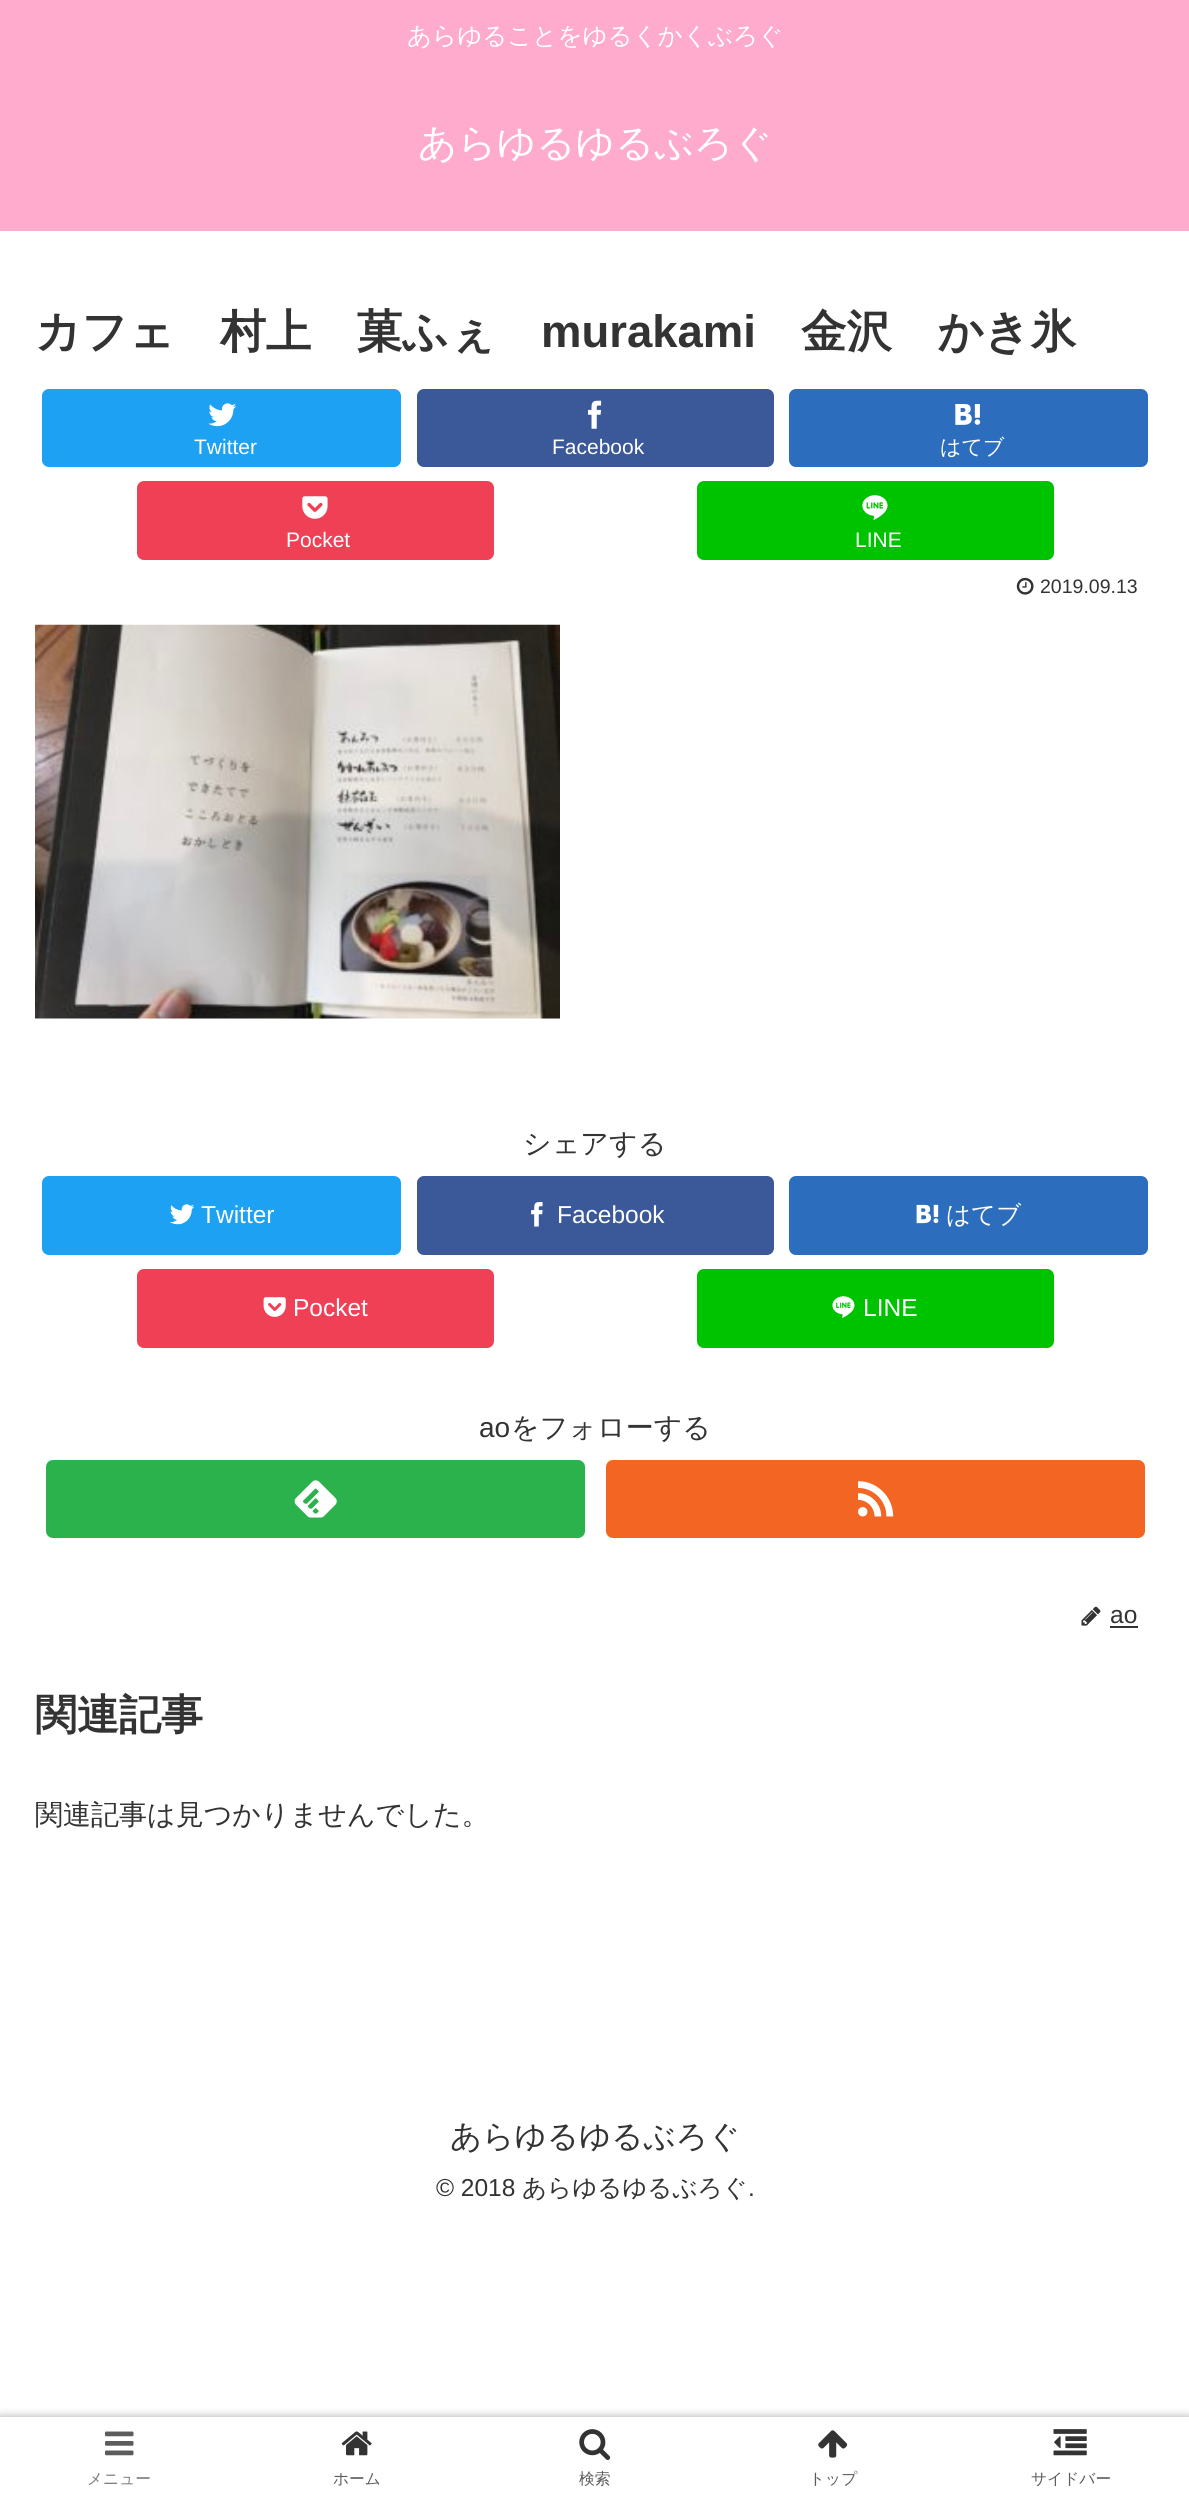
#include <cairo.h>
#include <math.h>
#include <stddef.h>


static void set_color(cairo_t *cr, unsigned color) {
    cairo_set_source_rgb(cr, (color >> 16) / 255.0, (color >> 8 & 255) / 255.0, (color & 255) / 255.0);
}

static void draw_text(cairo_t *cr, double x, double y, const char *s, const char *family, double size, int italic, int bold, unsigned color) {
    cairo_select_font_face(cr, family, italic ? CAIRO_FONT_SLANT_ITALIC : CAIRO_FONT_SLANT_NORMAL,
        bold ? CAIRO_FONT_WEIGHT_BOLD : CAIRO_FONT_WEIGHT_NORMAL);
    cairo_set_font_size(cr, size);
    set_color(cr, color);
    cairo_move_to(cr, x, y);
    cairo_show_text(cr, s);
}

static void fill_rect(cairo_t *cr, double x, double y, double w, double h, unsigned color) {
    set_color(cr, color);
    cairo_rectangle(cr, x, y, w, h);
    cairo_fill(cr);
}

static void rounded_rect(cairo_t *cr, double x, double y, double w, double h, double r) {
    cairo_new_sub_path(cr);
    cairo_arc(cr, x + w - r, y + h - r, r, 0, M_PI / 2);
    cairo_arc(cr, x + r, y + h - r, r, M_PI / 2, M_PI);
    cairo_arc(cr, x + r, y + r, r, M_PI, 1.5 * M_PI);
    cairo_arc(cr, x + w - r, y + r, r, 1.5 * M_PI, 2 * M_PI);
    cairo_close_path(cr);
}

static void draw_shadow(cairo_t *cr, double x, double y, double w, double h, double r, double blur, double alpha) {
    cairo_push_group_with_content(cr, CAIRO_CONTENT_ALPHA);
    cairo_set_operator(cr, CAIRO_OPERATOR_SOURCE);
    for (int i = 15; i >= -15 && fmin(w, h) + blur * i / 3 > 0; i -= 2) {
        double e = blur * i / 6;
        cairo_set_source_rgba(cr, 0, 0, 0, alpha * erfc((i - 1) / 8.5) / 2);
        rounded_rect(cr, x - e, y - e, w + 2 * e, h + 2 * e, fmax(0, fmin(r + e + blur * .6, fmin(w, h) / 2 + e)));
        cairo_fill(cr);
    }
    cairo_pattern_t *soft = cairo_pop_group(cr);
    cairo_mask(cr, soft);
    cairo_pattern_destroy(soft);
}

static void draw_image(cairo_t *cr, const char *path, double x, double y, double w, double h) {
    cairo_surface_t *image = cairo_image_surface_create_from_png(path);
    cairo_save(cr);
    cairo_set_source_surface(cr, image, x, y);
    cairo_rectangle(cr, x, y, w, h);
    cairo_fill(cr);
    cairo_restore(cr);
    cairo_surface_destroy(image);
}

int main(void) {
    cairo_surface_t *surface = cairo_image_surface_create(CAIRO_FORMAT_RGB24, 1189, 2504);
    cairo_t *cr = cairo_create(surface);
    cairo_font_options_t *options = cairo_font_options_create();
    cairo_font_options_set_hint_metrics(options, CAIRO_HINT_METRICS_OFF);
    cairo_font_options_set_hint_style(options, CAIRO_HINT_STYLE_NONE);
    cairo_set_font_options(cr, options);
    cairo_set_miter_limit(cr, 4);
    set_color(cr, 0xFFFFFF);
    cairo_paint(cr);
    fill_rect(cr, 0, 0, 1189, 231, 0xFFABCE);
    draw_text(cr, 407, 44, "あらゆることをゆるくかくぶろぐ", "WenQuanYi Zen Hei Medium", 24.5, 0, 0, 0xFFFFFF);
    draw_text(cr, 418, 156, "あらゆるゆるぶろぐ", "WenQuanYi Zen Hei Medium", 38.5, 0, 0, 0xFFFFFF);
    draw_text(cr, 35, 347, "カフェ　村上　菓ふぇ", "WenQuanYi Zen Hei", 45.5, 0, 1, 0x333333);
    draw_text(cr, 541, 347, "murakami", "Liberation Sans", 45.5, 0, 1, 0x333333);
    draw_text(cr, 801, 347, "金沢　かき氷", "WenQuanYi Zen Hei", 45.5, 0, 1, 0x333333);
    set_color(cr, 0x1DA1F2);
    rounded_rect(cr, 42, 389, 359, 78, 7);
    cairo_fill(cr);
    draw_image(cr, "assets/img1.png", 208, 403, 29, 24);
    draw_text(cr, 194, 454, "Twitter", "Liberation Sans", 21, 0, 0, 0xFFFFFF);
    set_color(cr, 0x3B5998);
    rounded_rect(cr, 417, 389, 357, 78, 7);
    cairo_fill(cr);
    draw_image(cr, "assets/img2.png", 588, 400, 14, 29);
    draw_text(cr, 552, 454, "Facebook", "Liberation Sans", 21, 0, 0, 0xFFFFFF);
    set_color(cr, 0x2C6EBD);
    rounded_rect(cr, 789, 389, 359, 78, 7);
    cairo_fill(cr);
    draw_image(cr, "assets/img3.png", 955, 404, 26, 21);
    draw_text(cr, 940, 454, "はてブ", "WenQuanYi Zen Hei Medium", 21, 0, 0, 0xFFFFFF);
    set_color(cr, 0xEF4056);
    rounded_rect(cr, 137, 481, 357, 79, 7);
    cairo_fill(cr);
    draw_image(cr, "assets/img4.png", 302, 496, 26, 23);
    draw_text(cr, 286, 547, "Pocket", "Liberation Sans", 21, 0, 0, 0xFFFFFF);
    set_color(cr, 0x00C300);
    rounded_rect(cr, 697, 481, 357, 79, 7);
    cairo_fill(cr);
    draw_image(cr, "assets/img5.png", 862, 495, 26, 25);
    draw_text(cr, 855, 547, "LINE", "Liberation Sans", 21, 0, 0, 0xFFFFFF);
    draw_image(cr, "assets/img6.png", 1016, 577, 18, 18);
    draw_text(cr, 1040, 593, "2019.09.13", "Liberation Sans", 19.5, 0, 0, 0x333333);
    draw_image(cr, "assets/img7.png", 35, 624, 525, 395);
    draw_text(cr, 523, 1153, "シェアする", "WenQuanYi Zen Hei Medium", 28, 0, 0, 0x333333);
    set_color(cr, 0x1DA1F2);
    rounded_rect(cr, 42, 1176, 359, 79, 7);
    cairo_fill(cr);
    draw_image(cr, "assets/img8.png", 170, 1204, 25, 21);
    draw_text(cr, 201, 1223, "Twitter", "Liberation Sans", 24.5, 0, 0, 0xFFFFFF);
    set_color(cr, 0x3B5998);
    rounded_rect(cr, 417, 1176, 357, 79, 7);
    cairo_fill(cr);
    draw_image(cr, "assets/img9.png", 531, 1202, 12, 25);
    draw_text(cr, 557, 1223, "Facebook", "Liberation Sans", 24.5, 0, 0, 0xFFFFFF);
    set_color(cr, 0x2C6EBD);
    rounded_rect(cr, 789, 1176, 359, 79, 7);
    cairo_fill(cr);
    draw_image(cr, "assets/img10.png", 916, 1204, 23, 20);
    draw_text(cr, 946, 1223, "はてブ", "WenQuanYi Zen Hei Medium", 24.5, 0, 0, 0xFFFFFF);
    set_color(cr, 0xEF4056);
    rounded_rect(cr, 137, 1269, 357, 79, 7);
    cairo_fill(cr);
    draw_image(cr, "assets/img11.png", 263, 1297, 23, 20);
    draw_text(cr, 293, 1316, "Pocket", "Liberation Sans", 24.5, 0, 0, 0xFFFFFF);
    set_color(cr, 0x00C300);
    rounded_rect(cr, 697, 1269, 357, 79, 7);
    cairo_fill(cr);
    draw_image(cr, "assets/img12.png", 832, 1296, 23, 22);
    draw_text(cr, 863, 1316, "LINE", "Liberation Sans", 24.5, 0, 0, 0xFFFFFF);
    draw_text(cr, 479, 1437, "ao", "Liberation Sans", 28, 0, 0, 0x333333);
    draw_text(cr, 511, 1437, "をフォローする", "WenQuanYi Zen Hei Medium", 28, 0, 0, 0x333333);
    set_color(cr, 0x2BB24C);
    rounded_rect(cr, 46, 1460, 539, 78, 7);
    cairo_fill(cr);
    draw_image(cr, "assets/img13.png", 294, 1480, 43, 38);
    set_color(cr, 0xF26522);
    rounded_rect(cr, 606, 1460, 539, 78, 7);
    cairo_fill(cr);
    draw_image(cr, "assets/img14.png", 858, 1481, 36, 36);
    draw_image(cr, "assets/img15.png", 1081, 1606, 20, 20);
    draw_text(cr, 1110, 1623, "ao", "Liberation Sans", 24.5, 0, 0, 0x333333);
    fill_rect(cr, 1110, 1626, 28, 2, 0x333333);
    draw_text(cr, 35, 1729, "関連記事", "WenQuanYi Zen Hei", 42, 0, 1, 0x333333);
    draw_text(cr, 35, 1824, "関連記事は見つかりませんでした。", "WenQuanYi Zen Hei Medium", 28, 0, 0, 0x333333);
    draw_text(cr, 450, 2147, "あらゆるゆるぶろぐ", "WenQuanYi Zen Hei Medium", 31.5, 0, 0, 0x333333);
    draw_text(cr, 436, 2196, "© 2018", "Liberation Sans", 24.5, 0, 0, 0x333333);
    draw_text(cr, 522, 2196, "あらゆるゆるぶろぐ", "WenQuanYi Zen Hei Medium", 24.5, 0, 0, 0x333333);
    draw_text(cr, 748, 2196, ".", "Liberation Sans", 24.5, 0, 0, 0x333333);
    cairo_save(cr);
    cairo_rectangle(cr, 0, 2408, 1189, 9);
    cairo_clip(cr);
    set_color(cr, 0xA9A9A9);
    draw_shadow(cr, 0, 2417, 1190, 87, 0, 4.5, 1);
    cairo_restore(cr);
    draw_image(cr, "assets/img16.png", 105, 2431, 29, 25);
    draw_text(cr, 87, 2484, "メニュー", "WenQuanYi Zen Hei Medium", 15.75, 0, 0, 0x7C7C7C);
    draw_image(cr, "assets/img17.png", 341, 2431, 31, 25);
    draw_text(cr, 333, 2484, "ホーム", "WenQuanYi Zen Hei Medium", 15.75, 0, 0, 0x5C5C5C);
    draw_image(cr, "assets/img18.png", 579, 2429, 32, 31);
    draw_text(cr, 579, 2484, "検索", "WenQuanYi Zen Hei Medium", 15.75, 0, 0, 0x5C5C5C);
    draw_image(cr, "assets/img19.png", 818, 2430, 30, 28);
    draw_text(cr, 809, 2484, "トップ", "WenQuanYi Zen Hei Medium", 15.75, 0, 0, 0x5C5C5C);
    draw_image(cr, "assets/img20.png", 1053, 2429, 34, 27);
    draw_text(cr, 1031, 2484, "サイドバー", "WenQuanYi Zen Hei Medium", 15.75, 0, 0, 0x5C5C5C);
    cairo_surface_write_to_png(surface, "output.png");
    cairo_font_options_destroy(options);
    cairo_destroy(cr);
    cairo_surface_destroy(surface);
    return 0;
}
